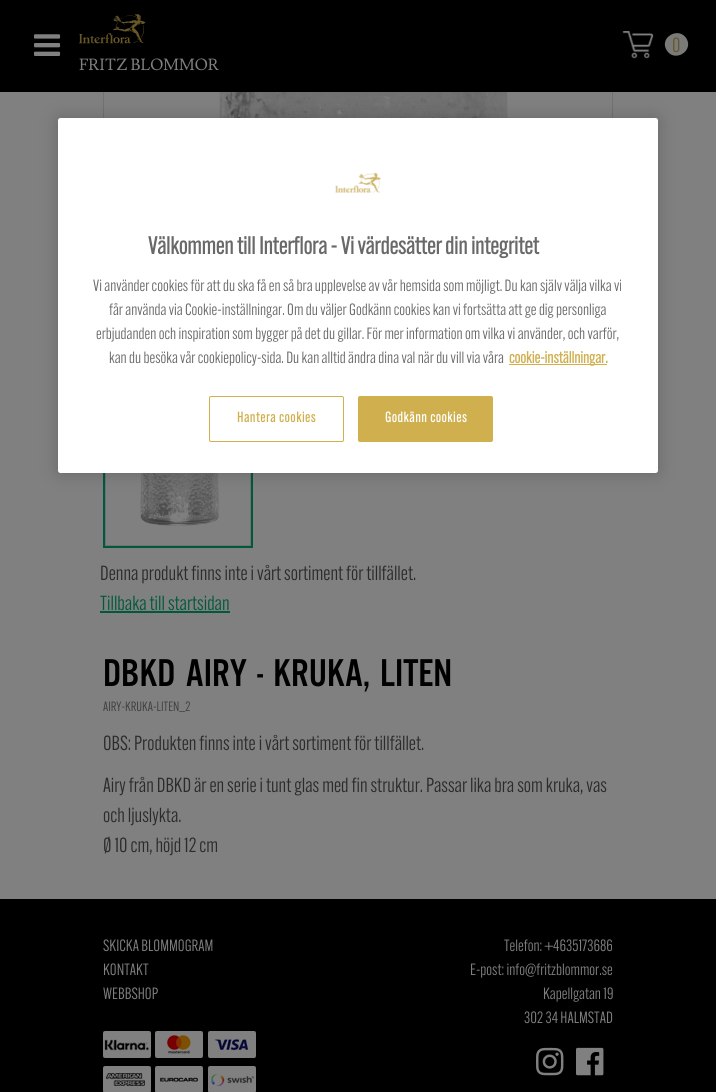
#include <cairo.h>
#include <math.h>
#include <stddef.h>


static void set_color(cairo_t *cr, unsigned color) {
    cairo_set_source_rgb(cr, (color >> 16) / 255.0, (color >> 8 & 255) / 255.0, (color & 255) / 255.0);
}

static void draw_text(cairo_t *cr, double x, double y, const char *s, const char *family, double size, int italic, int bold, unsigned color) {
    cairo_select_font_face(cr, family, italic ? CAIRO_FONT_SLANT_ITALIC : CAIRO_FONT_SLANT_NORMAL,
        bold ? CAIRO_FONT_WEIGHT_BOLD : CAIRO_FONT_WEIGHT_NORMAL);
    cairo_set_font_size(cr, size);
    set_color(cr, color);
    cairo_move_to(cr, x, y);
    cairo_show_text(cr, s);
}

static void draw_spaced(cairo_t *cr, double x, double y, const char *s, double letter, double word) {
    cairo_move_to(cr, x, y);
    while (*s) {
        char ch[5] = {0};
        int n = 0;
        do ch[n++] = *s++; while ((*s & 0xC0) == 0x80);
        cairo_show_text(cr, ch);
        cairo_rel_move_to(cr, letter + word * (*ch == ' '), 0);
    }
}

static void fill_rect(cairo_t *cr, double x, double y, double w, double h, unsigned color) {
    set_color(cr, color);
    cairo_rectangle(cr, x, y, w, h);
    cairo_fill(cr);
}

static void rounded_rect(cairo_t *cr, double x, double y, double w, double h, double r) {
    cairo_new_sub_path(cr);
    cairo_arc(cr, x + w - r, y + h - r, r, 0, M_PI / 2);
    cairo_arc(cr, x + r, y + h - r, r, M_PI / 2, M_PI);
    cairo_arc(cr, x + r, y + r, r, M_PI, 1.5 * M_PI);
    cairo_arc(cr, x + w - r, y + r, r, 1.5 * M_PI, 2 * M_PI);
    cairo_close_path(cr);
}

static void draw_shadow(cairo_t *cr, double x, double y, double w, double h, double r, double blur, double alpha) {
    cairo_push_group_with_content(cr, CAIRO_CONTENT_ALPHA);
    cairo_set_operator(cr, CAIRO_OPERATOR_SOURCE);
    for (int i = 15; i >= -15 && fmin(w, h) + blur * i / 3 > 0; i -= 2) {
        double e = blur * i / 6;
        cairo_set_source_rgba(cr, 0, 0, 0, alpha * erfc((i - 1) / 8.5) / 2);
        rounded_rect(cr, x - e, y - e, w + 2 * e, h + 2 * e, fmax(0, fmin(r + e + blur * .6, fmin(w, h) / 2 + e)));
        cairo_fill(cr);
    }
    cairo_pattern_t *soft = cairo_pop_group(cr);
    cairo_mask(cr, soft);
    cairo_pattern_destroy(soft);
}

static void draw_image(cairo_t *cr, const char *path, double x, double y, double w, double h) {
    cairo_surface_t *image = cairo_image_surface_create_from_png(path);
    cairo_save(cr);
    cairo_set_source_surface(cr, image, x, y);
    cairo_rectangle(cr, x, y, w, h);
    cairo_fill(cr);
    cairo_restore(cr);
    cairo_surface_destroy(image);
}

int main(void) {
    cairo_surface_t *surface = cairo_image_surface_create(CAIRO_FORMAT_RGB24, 716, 1092);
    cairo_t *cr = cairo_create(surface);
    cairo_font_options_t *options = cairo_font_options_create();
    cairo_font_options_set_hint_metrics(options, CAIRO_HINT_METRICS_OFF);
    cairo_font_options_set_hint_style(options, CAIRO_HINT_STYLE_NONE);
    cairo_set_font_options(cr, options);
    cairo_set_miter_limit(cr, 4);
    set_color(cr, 0x808080);
    cairo_paint(cr);
    cairo_rectangle(cr, 103.5, -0.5, 509, 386);
    set_color(cr, 0x6F7173);
    cairo_set_line_width(cr, 1);
    cairo_stroke(cr);
    fill_rect(cr, 0, 0, 716, 92, 0x000000);
    draw_image(cr, "assets/img1.png", 34, 34, 27, 22);
    draw_image(cr, "assets/img2.png", 622, 31, 32, 28);
    set_color(cr, 0x7A7A79);
    cairo_new_path(cr);
    cairo_move_to(cr, 686.5, 38.5);
    cairo_curve_to(cr, 694, 51.5, 674, 63, 666.5, 50);
    cairo_curve_to(cr, 659, 37.5, 678.5, 26, 686.5, 38.5);
    cairo_close_path(cr);
    cairo_fill(cr);
    draw_text(cr, 672, 52, "0", "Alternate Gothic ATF", 20, 0, 0, 0x65572D);
    draw_image(cr, "assets/img3.png", 79, 14, 67, 30);
    draw_text(cr, 79, 70, "FRITZ BLOMMOR", "Lusitana", 16, 0, 0, 0x808080);
    draw_image(cr, "assets/img4.png", 218, 92, 293, 26);
    cairo_rectangle(cr, 104, 399, 148, 148);
    set_color(cr, 0x00593D);
    cairo_set_line_width(cr, 2);
    cairo_stroke(cr);
    cairo_rectangle(cr, 105.5, 400.5, 145, 145);
    set_color(cr, 0x6F7173);
    cairo_set_line_width(cr, 1);
    cairo_stroke(cr);
    draw_image(cr, "assets/img5.png", 140, 473, 79, 53);
    draw_text(cr, 100, 580, "Denna produkt finns inte i vårt sortiment för tillfället.", "Alternate Gothic ATF", 20, 0, 0, 0x2B2B2B);
    draw_text(cr, 100, 610, "Tillbaka till startsidan", "Alternate Gothic ATF", 20, 0, 0, 0x00593D);
    fill_rect(cr, 100, 611, 130, 2, 0x00593D);
    draw_text(cr, 103, 686, "DBKD AIRY - KRUKA, LITEN", "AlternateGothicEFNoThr", 40.25, 0, 0, 0x000000);
    draw_text(cr, 103, 711, "AIRY-KRUKA-LITEN_2", "Alternate Gothic ATF", 13.25, 0, 0, 0x3D3E3B);
    draw_text(cr, 103, 750, "OBS: Produkten finns inte i vårt sortiment för tillfället.", "Alternate Gothic ATF", 20, 0, 0, 0x2B2B2B);
    draw_text(cr, 103, 792, "Airy från DBKD är en serie i tunt glas med fin struktur. Passar lika bra som kruka, vas", "Alternate Gothic ATF", 20, 0, 0, 0x2B2B2B);
    draw_text(cr, 103, 822, "och ljuslykta.", "Alternate Gothic ATF", 20, 0, 0, 0x2B2B2B);
    draw_text(cr, 103, 852, "Ø 10 cm, höjd 12 cm", "Alternate Gothic ATF", 20, 0, 0, 0x2B2B2B);
    set_color(cr, 0x000000);
    draw_shadow(cr, 58, 118, 600, 355, 2.5, 9, 0.2);
    set_color(cr, 0xFFFFFF);
    rounded_rect(cr, 58, 118, 600, 355, 2.5);
    cairo_fill(cr);
    draw_image(cr, "assets/img6.png", 335, 172, 46, 21);
    draw_text(cr, 148, 254, "Välkommen till Interflora - Vi värdesätter din integritet", "Alternate Gothic ATF", 24, 0, 1, 0x696969);
    draw_text(cr, 93, 291, "Vi använder cookies för att du ska få en så bra upplevelse av vår hemsida som möjligt. Du kan själv välja vilka vi", "Alternate Gothic ATF", 16, 0, 0, 0x696969);
    draw_text(cr, 109, 315, "får använda via Cookie-inställningar. Om du väljer Godkänn cookies kan vi fortsätta att ge dig personliga", "Alternate Gothic ATF", 16, 0, 0, 0x696969);
    draw_text(cr, 96, 339, "erbjudanden och inspiration som bygger på det du gillar. För mer information om vilka vi använder, och varför,", "Alternate Gothic ATF", 16, 0, 0, 0x696969);
    draw_text(cr, 109, 363, "kan du besöka vår cookiepolicy-sida. Du kan alltid ändra dina val när du vill via våra", "Alternate Gothic ATF", 16, 0, 0, 0x696969);
    fill_rect(cr, 509, 364, 98, 1, 0xD0B04E);
    draw_text(cr, 509, 363, "cookie-inställningar.", "Alternate Gothic ATF", 16, 0, 1, 0xD0B04E);
    rounded_rect(cr, 209.5, 396.5, 134, 45, 1.5);
    cairo_stroke(cr);
    cairo_set_font_size(cr, 14);
    draw_spaced(cr, 237, 422, "Hantera cookies", 0.75, 0);
    rounded_rect(cr, 358.5, 396.5, 134, 45, 1.5);
    cairo_fill_preserve(cr);
    cairo_stroke(cr);
    set_color(cr, 0xFFFFFF);
    draw_spaced(cr, 385, 422, "Godkänn cookies", 0.75, 0);
    fill_rect(cr, 0, 899, 716, 193, 0x000000);
    draw_text(cr, 103, 951, "SKICKA BLOMMOGRAM", "Alternate Gothic ATF", 16, 0, 0, 0x808080);
    draw_text(cr, 103, 975, "KONTAKT", "Alternate Gothic ATF", 16, 0, 0, 0x808080);
    draw_text(cr, 103, 999, "WEBBSHOP", "Alternate Gothic ATF", 16, 0, 0, 0x808080);
    draw_text(cr, 504, 951, "Telefon: +4635173686", "Alternate Gothic ATF", 16, 0, 0, 0x808080);
    draw_text(cr, 470, 975, "E-post: info@fritzblommor.se", "Alternate Gothic ATF", 16, 0, 0, 0x808080);
    draw_text(cr, 543, 999, "Kapellgatan 19", "Alternate Gothic ATF", 16, 0, 0, 0x808080);
    draw_text(cr, 524, 1023, "302 34 HALMSTAD", "Alternate Gothic ATF", 16, 0, 0, 0x808080);
    draw_image(cr, "assets/img7.png", 103, 1031, 48, 27);
    draw_image(cr, "assets/img8.png", 155, 1031, 48, 27);
    draw_image(cr, "assets/img9.png", 208, 1031, 48, 27);
    draw_image(cr, "assets/img10.png", 103, 1066, 48, 26);
    draw_image(cr, "assets/img11.png", 155, 1066, 48, 26);
    draw_image(cr, "assets/img12.png", 208, 1066, 48, 26);
    draw_image(cr, "assets/img13.png", 536, 1047, 28, 29);
    draw_image(cr, "assets/img14.png", 576, 1047, 28, 29);
    cairo_surface_write_to_png(surface, "output.png");
    cairo_font_options_destroy(options);
    cairo_destroy(cr);
    cairo_surface_destroy(surface);
    return 0;
}
